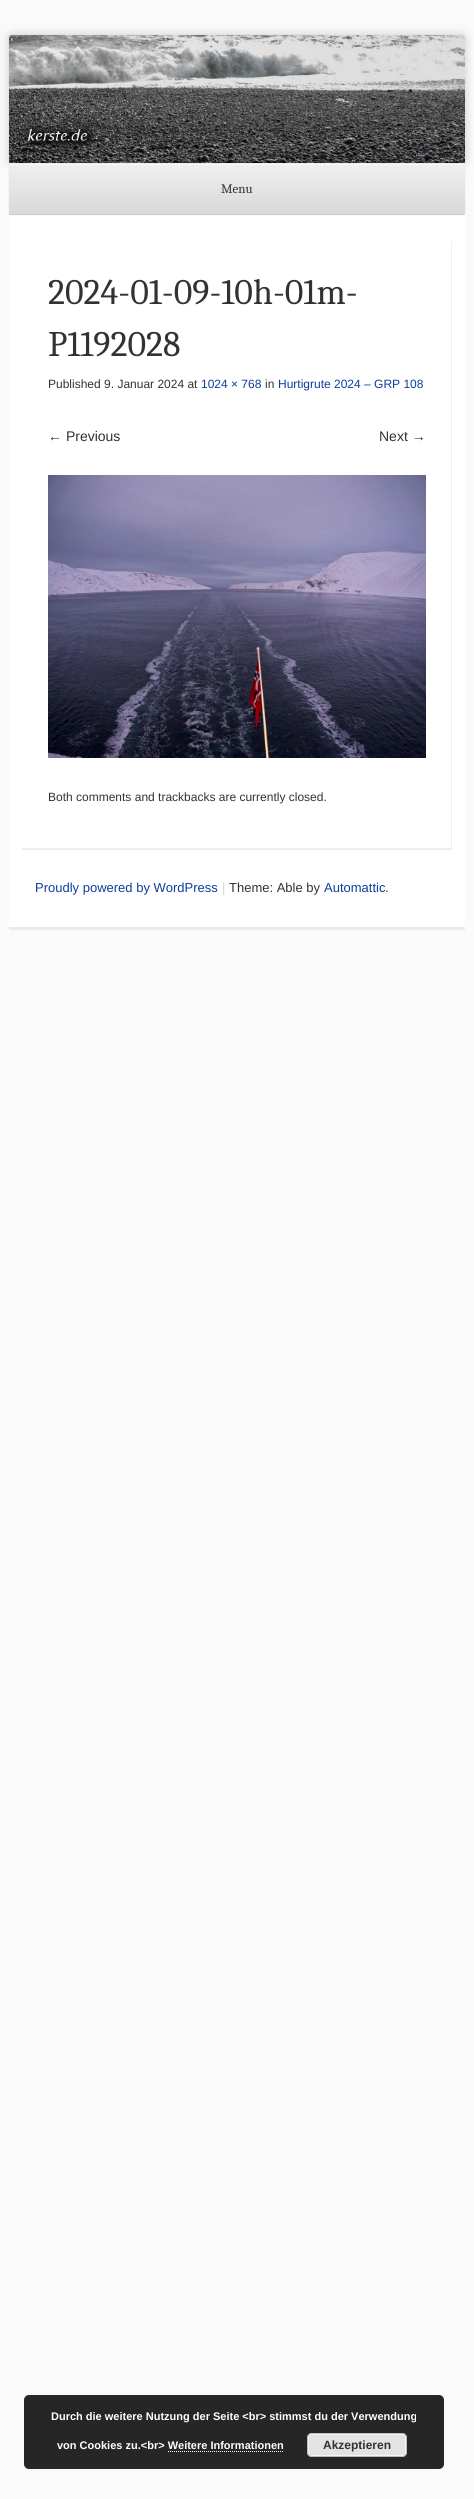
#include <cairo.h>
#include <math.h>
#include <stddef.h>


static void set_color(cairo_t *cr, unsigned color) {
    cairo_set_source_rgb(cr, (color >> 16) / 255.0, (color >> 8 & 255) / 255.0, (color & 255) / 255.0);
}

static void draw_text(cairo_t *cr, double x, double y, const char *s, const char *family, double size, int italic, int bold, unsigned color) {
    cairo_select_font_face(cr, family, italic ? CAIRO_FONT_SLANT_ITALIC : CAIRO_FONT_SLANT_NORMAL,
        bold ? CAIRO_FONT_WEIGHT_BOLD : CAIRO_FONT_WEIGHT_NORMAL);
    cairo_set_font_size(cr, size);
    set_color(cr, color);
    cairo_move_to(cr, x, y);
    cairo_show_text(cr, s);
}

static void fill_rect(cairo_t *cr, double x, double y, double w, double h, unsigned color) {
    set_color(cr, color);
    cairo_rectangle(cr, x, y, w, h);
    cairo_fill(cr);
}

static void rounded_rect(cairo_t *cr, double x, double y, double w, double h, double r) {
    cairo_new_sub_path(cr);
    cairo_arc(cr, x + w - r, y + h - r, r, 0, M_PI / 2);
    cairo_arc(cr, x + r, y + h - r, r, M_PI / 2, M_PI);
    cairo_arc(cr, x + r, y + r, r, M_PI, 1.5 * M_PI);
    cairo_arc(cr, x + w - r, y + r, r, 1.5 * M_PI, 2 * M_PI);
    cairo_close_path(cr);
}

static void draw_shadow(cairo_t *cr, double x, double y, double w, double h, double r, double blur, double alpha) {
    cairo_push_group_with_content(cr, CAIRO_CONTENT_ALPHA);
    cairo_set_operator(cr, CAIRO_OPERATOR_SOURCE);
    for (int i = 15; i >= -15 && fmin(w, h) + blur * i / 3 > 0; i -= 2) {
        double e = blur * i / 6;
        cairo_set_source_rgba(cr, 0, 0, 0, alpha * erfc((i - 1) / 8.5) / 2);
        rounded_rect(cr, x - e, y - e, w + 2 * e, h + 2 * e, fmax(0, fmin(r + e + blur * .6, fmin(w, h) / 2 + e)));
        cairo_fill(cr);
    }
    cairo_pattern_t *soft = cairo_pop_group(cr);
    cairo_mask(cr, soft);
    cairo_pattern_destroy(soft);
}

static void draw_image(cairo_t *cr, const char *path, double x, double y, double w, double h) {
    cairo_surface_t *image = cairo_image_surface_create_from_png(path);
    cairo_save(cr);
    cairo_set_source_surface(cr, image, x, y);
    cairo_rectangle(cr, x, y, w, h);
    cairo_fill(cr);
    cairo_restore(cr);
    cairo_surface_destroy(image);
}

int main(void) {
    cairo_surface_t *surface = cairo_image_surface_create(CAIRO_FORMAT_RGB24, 474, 2499);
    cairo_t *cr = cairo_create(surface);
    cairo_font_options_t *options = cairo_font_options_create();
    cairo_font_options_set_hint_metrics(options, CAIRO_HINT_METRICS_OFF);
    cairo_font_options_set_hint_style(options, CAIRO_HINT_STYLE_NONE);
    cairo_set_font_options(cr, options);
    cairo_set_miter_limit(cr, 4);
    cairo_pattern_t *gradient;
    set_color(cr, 0xFAFAFA);
    cairo_paint(cr);
    set_color(cr, 0xFFFFFF);
    cairo_new_path(cr);
    cairo_move_to(cr, 12, 35);
    cairo_line_to(cr, 462, 35);
    cairo_curve_to(cr, 463.5, 35, 465, 36.5, 465, 38);
    cairo_line_to(cr, 465, 930);
    cairo_line_to(cr, 9, 930);
    cairo_line_to(cr, 9, 38);
    cairo_curve_to(cr, 9, 36.5, 10.5, 35, 12, 35);
    cairo_close_path(cr);
    cairo_fill(cr);
    fill_rect(cr, 9, 927, 456, 3, 0xEBEBEB);
    set_color(cr, 0x000000);
    draw_shadow(cr, 9, 35, 456, 128, 3, 5, 0.2);
    draw_shadow(cr, 9, 163, 456, 52, 3, 0.5, 0.1);
    draw_image(cr, "assets/img1.png", 9, 35, 456, 128);
    set_color(cr, 0xF0F0F0);
    cairo_new_path(cr);
    cairo_move_to(cr, 12, 163);
    cairo_line_to(cr, 462, 163);
    cairo_curve_to(cr, 463.5, 163, 465, 164.5, 465, 166);
    cairo_line_to(cr, 465, 215);
    cairo_line_to(cr, 9, 215);
    cairo_line_to(cr, 9, 166);
    cairo_curve_to(cr, 9, 164.5, 10.5, 163, 12, 163);
    cairo_close_path(cr);
    cairo_fill(cr);
    gradient = cairo_pattern_create_linear(237, 163, 237, 215);
    cairo_pattern_add_color_stop_rgba(gradient, 0, 0.941, 0.941, 0.941, 0.8);
    cairo_pattern_add_color_stop_rgba(gradient, 1, 0.824, 0.824, 0.824, 0.8);
    cairo_set_source(cr, gradient);
    cairo_pattern_destroy(gradient);
    cairo_new_path(cr);
    cairo_move_to(cr, 12, 163);
    cairo_line_to(cr, 462, 163);
    cairo_curve_to(cr, 463.5, 163, 465, 164.5, 465, 166);
    cairo_line_to(cr, 465, 215);
    cairo_line_to(cr, 9, 215);
    cairo_line_to(cr, 9, 166);
    cairo_curve_to(cr, 9, 164.5, 10.5, 163, 12, 163);
    cairo_close_path(cr);
    cairo_fill(cr);
    fill_rect(cr, 9, 214, 456, 1, 0xCECECE);
    set_color(cr, 0xF8F8F8);
    cairo_new_path(cr);
    cairo_move_to(cr, 12, 165);
    cairo_line_to(cr, 462, 165);
    cairo_curve_to(cr, 464, 165, 465, 166, 465, 168);
    cairo_line_to(cr, 465, 166);
    cairo_curve_to(cr, 465, 164, 464, 163, 462, 163);
    cairo_line_to(cr, 12, 163);
    cairo_curve_to(cr, 10, 163, 9, 164, 9, 166);
    cairo_line_to(cr, 9, 168);
    cairo_curve_to(cr, 9, 166, 10, 165, 12, 165);
    cairo_close_path(cr);
    cairo_fill(cr);
    cairo_set_source_rgba(cr, 0.902, 0.902, 0.902, 0.8);
    cairo_new_path(cr);
    cairo_move_to(cr, 12, 164);
    cairo_line_to(cr, 462, 164);
    cairo_curve_to(cr, 464, 164, 465, 165, 465, 167);
    cairo_curve_to(cr, 465, 165, 465, 163, 463, 163);
    cairo_line_to(cr, 11, 163);
    cairo_line_to(cr, 9, 165);
    cairo_line_to(cr, 9, 167);
    cairo_curve_to(cr, 9, 165, 10, 164, 12, 164);
    cairo_close_path(cr);
    cairo_fill(cr);
    draw_text(cr, 221, 193, "Menu", "Caladea", 13, 0, 0, 0x323232);
    cairo_save(cr);
    cairo_rectangle(cr, 22, 241, 430, 608);
    cairo_clip(cr);
    set_color(cr, 0xEFEFEF);
    cairo_set_fill_rule(cr, CAIRO_FILL_RULE_EVEN_ODD);
    cairo_new_path(cr);
    cairo_move_to(cr, -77, 142);
    cairo_line_to(cr, 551, 142);
    cairo_line_to(cr, 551, 948);
    cairo_line_to(cr, -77, 948);
    cairo_close_path(cr);
    cairo_move_to(cr, 21, 240);
    cairo_line_to(cr, 451, 240);
    cairo_line_to(cr, 451, 848);
    cairo_line_to(cr, 21, 848);
    cairo_close_path(cr);
    cairo_fill(cr);
    cairo_restore(cr);
    fill_rect(cr, 22, 849, 430, 1, 0xEBEBEB);
    draw_text(cr, 48, 304, "2024-01-09-10h-01m-", "Caladea", 36, 0, 0, 0x323232);
    draw_text(cr, 48, 356, "P1192028", "Caladea", 36, 0, 0, 0x323232);
    draw_text(cr, 48, 388, "Published 9. Januar 2024 at", "Liberation Sans", 12, 0, 0, 0x323232);
    draw_text(cr, 201, 388, "1024 × 768", "Liberation Sans", 12, 0, 0, 0x0D3D9B);
    draw_text(cr, 265, 388, "in", "Liberation Sans", 12, 0, 0, 0x323232);
    draw_text(cr, 278, 388, "Hurtigrute 2024 – GRP 108", "Liberation Sans", 12, 0, 0, 0x0D3D9B);
    draw_text(cr, 48, 441, "← Previous", "Liberation Sans", 14, 0, 0, 0x323232);
    draw_text(cr, 379, 441, "Next →", "Liberation Sans", 14, 0, 0, 0x323232);
    draw_image(cr, "assets/img2.png", 48, 475, 378, 283);
    draw_text(cr, 48, 801, "Both comments and trackbacks are currently closed.", "Liberation Sans", 12, 0, 0, 0x323232);
    draw_text(cr, 35, 892, "Proudly powered by WordPress", "Liberation Sans", 13, 0, 0, 0x0D3D9B);
    draw_text(cr, 222, 892, "|", "Liberation Sans", 13, 0, 0, 0xD3D3D3);
    draw_text(cr, 229, 892, "Theme: Able by", "Liberation Sans", 13, 0, 0, 0x323232);
    draw_text(cr, 324, 892, "Automattic", "Liberation Sans", 13, 0, 0, 0x0D3D9B);
    draw_text(cr, 385, 892, ".", "Liberation Sans", 13, 0, 0, 0x323232);
    set_color(cr, 0x262626);
    rounded_rect(cr, 24, 2395, 420, 74, 5);
    cairo_fill(cr);
    draw_text(cr, 51, 2420, "Durch die weitere Nutzung der Seite <br> stimmst du der Verwendung", "Liberation Sans", 11, 0, 1, 0xFFFFFF);
    draw_text(cr, 57, 2449, "von Cookies zu.<br> Weitere Informationen", "Liberation Sans", 11, 0, 1, 0xFFFFFF);
    set_color(cr, 0xE3E3E3);
    rounded_rect(cr, 307, 2433, 100, 24, 5);
    cairo_fill(cr);
    rounded_rect(cr, 308.5, 2434.5, 97, 21, 3.5);
    set_color(cr, 0xF6F6F6);
    cairo_set_line_width(cr, 1);
    cairo_stroke(cr);
    rounded_rect(cr, 307.5, 2433.5, 99, 23, 4.5);
    set_color(cr, 0xBBBBBB);
    cairo_stroke(cr);
    draw_text(cr, 323, 2449, "Akzeptieren", "Liberation Sans", 12, 0, 1, 0x323232);
    cairo_new_path(cr);
    cairo_move_to(cr, 168, 2451.5);
    cairo_line_to(cr, 284, 2451.5);
    set_color(cr, 0xFFFFFF);
    cairo_set_dash(cr, (double[]){1, 1}, 2, 0);
    cairo_stroke(cr);
    cairo_surface_write_to_png(surface, "output.png");
    cairo_font_options_destroy(options);
    cairo_destroy(cr);
    cairo_surface_destroy(surface);
    return 0;
}
